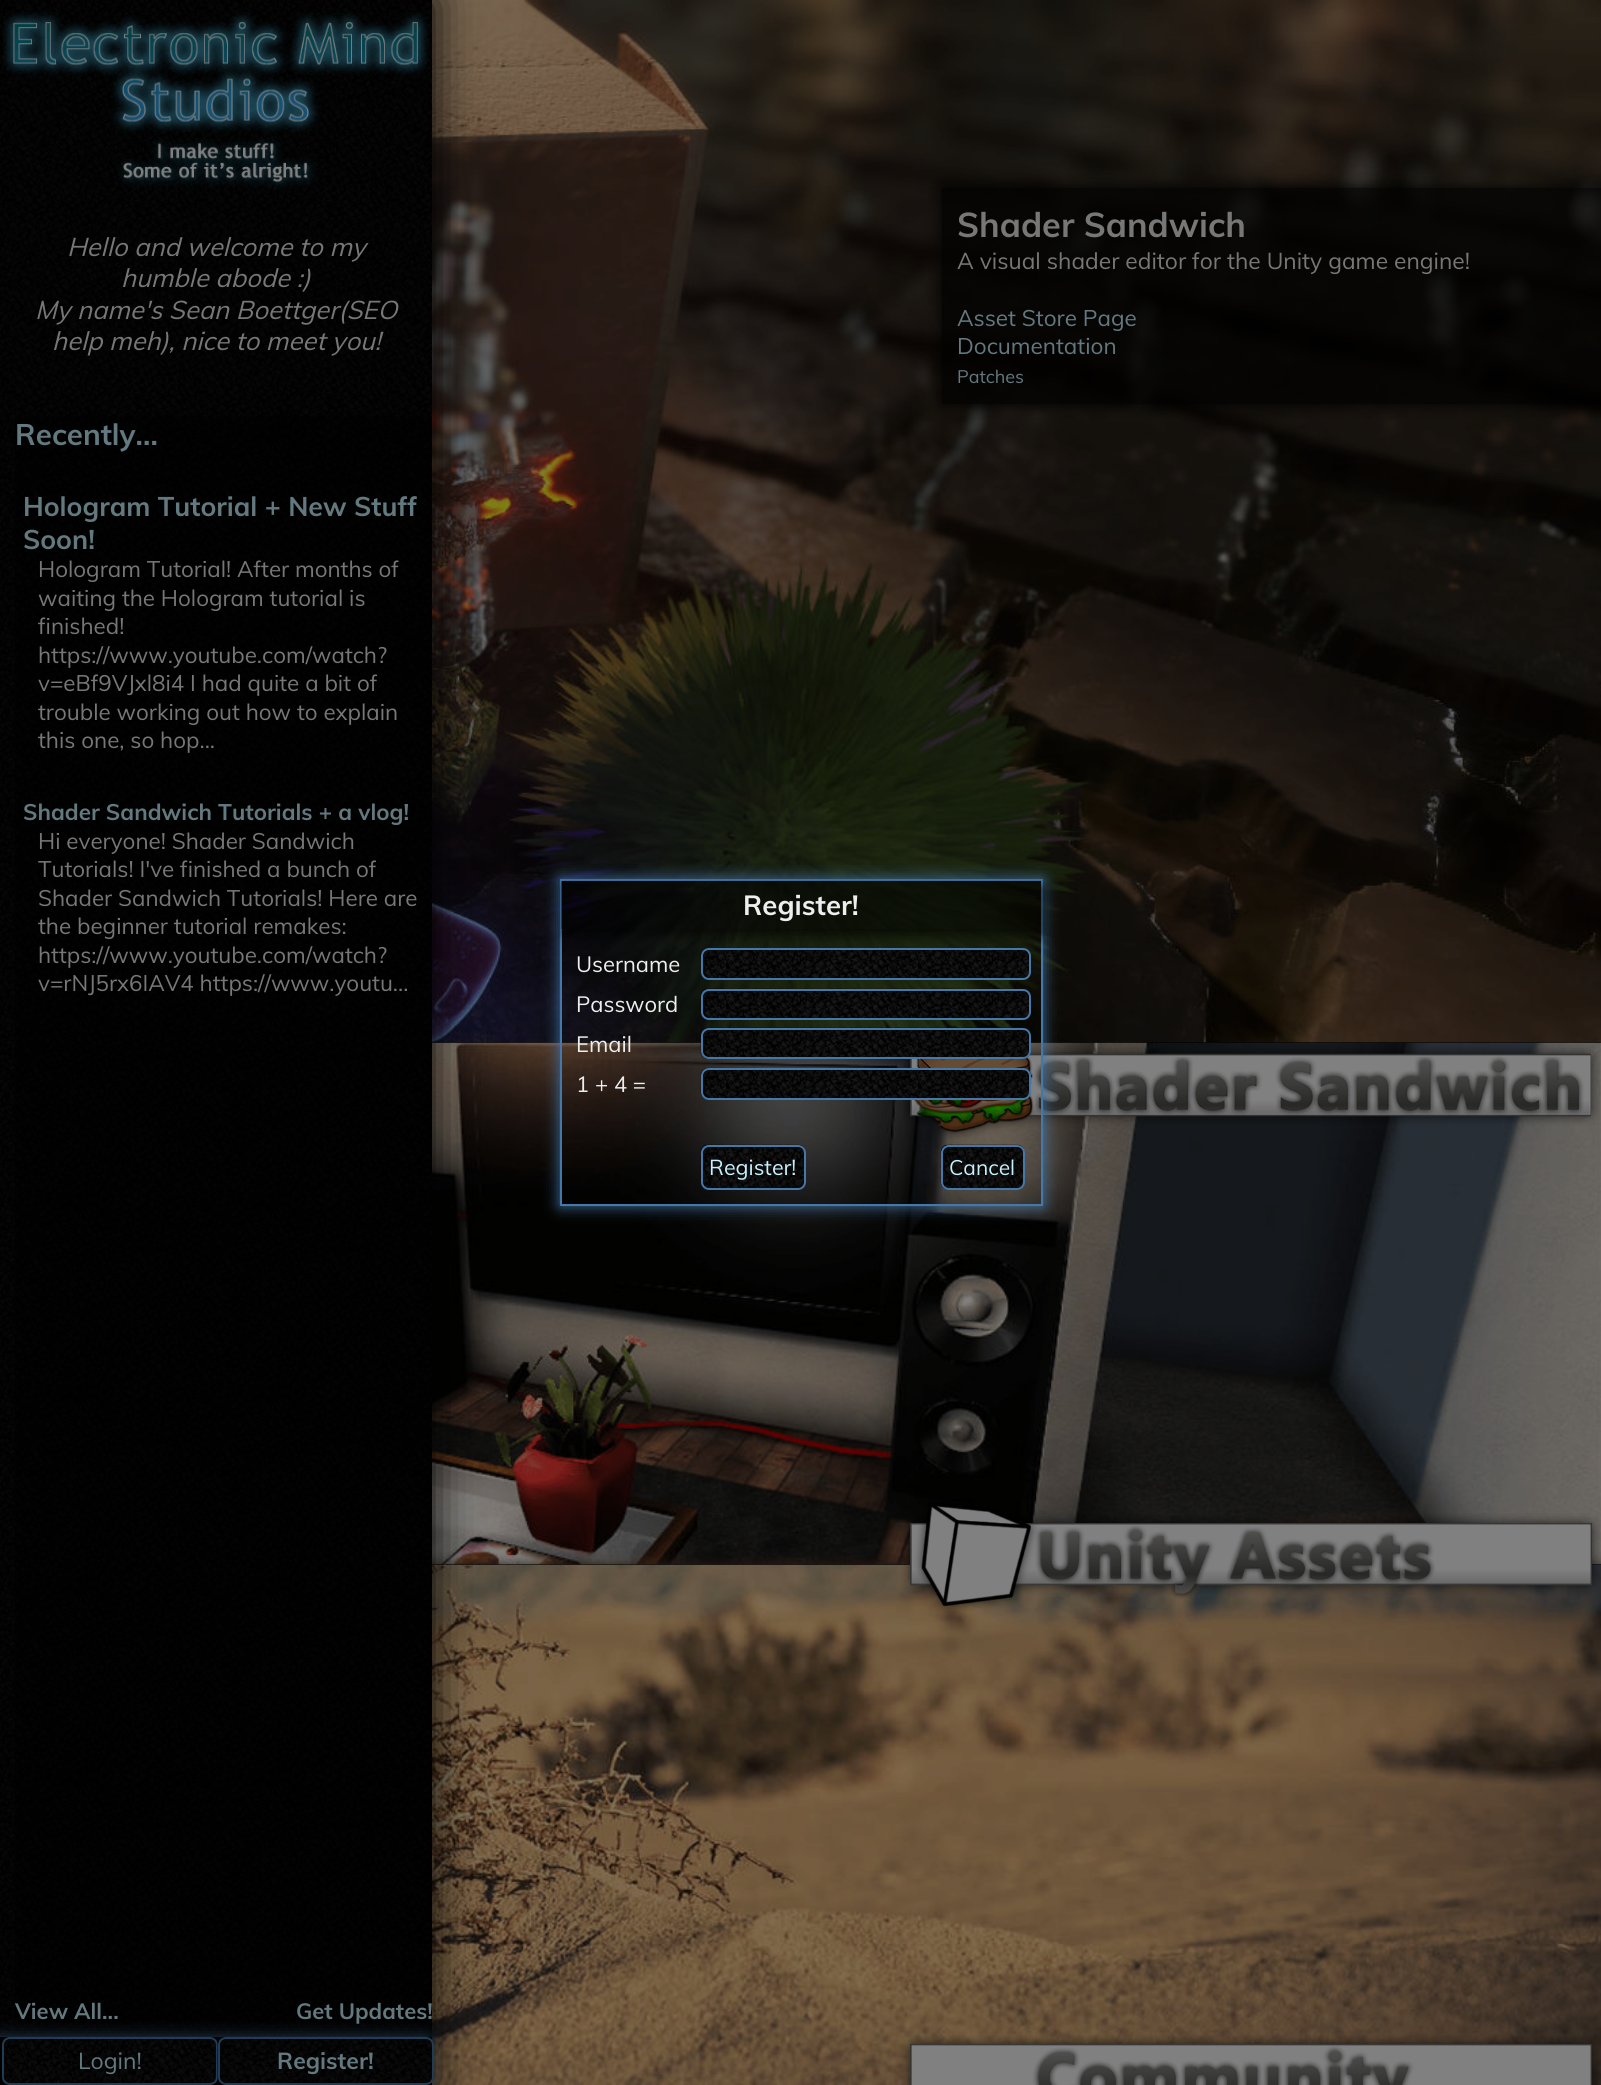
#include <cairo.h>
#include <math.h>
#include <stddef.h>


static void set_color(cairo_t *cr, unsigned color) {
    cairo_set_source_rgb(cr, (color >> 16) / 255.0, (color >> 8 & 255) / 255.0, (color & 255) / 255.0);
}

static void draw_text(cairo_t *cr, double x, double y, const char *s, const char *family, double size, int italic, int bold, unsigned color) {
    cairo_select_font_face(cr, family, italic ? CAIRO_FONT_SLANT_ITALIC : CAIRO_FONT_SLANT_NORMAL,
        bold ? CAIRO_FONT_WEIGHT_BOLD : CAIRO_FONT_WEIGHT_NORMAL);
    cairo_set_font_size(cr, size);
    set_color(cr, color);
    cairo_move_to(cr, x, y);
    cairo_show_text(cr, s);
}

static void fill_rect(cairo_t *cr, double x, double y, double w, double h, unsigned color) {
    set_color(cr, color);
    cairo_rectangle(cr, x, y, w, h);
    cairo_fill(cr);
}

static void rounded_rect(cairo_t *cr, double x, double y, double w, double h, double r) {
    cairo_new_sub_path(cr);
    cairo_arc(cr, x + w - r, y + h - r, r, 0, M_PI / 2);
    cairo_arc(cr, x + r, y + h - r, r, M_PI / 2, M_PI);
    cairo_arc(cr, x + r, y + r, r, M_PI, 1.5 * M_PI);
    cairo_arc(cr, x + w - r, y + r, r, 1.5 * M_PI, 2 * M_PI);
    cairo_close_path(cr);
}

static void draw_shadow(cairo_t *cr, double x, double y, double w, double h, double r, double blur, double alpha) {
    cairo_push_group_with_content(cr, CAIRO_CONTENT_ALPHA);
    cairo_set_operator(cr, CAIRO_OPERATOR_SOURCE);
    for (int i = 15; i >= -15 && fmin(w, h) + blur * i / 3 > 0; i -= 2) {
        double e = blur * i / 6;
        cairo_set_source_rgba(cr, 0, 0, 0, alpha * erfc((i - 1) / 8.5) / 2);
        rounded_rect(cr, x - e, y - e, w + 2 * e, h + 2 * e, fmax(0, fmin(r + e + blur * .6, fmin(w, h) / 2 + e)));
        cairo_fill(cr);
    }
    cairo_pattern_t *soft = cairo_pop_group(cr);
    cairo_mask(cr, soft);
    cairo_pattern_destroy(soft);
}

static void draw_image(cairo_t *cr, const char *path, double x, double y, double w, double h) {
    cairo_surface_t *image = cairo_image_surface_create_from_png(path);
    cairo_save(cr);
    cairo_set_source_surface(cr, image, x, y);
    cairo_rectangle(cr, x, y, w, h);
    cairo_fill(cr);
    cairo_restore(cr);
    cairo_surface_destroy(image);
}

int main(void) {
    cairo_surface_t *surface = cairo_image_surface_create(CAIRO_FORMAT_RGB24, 1601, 2085);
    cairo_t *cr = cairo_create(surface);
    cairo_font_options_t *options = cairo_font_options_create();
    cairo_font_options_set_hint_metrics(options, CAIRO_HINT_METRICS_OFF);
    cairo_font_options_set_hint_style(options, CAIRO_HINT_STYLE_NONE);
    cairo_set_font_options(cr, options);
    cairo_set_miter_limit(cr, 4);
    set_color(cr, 0x000000);
    cairo_paint(cr);
    draw_image(cr, "assets/img15.png", 432, 1564, 1169, 521);
    draw_image(cr, "assets/img13.png", 432, 1042, 1169, 523);
    draw_image(cr, "assets/img11.png", 432, 0, 1169, 1043);
    draw_shadow(cr, 0, 0, 432, 2085, 0, 22.5, 1);
    draw_image(cr, "assets/img1.png", 0, 0, 432, 2037);
    draw_image(cr, "assets/img2.png", 3, 12, 426, 178);
    draw_text(cr, 67, 256, "Hello and welcome to my", "Muli", 25.6, 1, 0, 0x777777);
    draw_text(cr, 121, 287, "humble abode :)", "Muli", 25.6, 1, 0, 0x777777);
    draw_text(cr, 35, 319, "My name's Sean Boettger(SEO", "Muli", 25.6, 1, 0, 0x777777);
    draw_text(cr, 52, 350, "help meh), nice to meet you!", "Muli", 25.6, 1, 0, 0x777777);
    cairo_set_source_rgba(cr, 0, 0, 0, 0.5);
    cairo_rectangle(cr, 15, 416, 417, 1621);
    cairo_fill(cr);
    draw_text(cr, 15, 445, "Recently...", "Muli", 29.5, 0, 1, 0x637980);
    draw_text(cr, 23, 516, "Hologram Tutorial + New Stuff", "Muli", 26.8, 0, 1, 0x637980);
    draw_text(cr, 23, 549, "Soon!", "Muli", 26.8, 0, 1, 0x637980);
    draw_text(cr, 38, 577, "Hologram Tutorial! After months of", "Muli", 22.4, 0, 0, 0x777777);
    draw_text(cr, 38, 606, "waiting the Hologram tutorial is", "Muli", 22.4, 0, 0, 0x777777);
    draw_text(cr, 38, 634, "finished!", "Muli", 22.4, 0, 0, 0x777777);
    draw_text(cr, 38, 663, "https://www.youtube.com/watch?", "Muli", 22.4, 0, 0, 0x777777);
    draw_text(cr, 38, 691, "v=eBf9VJxl8i4 I had quite a bit of", "Muli", 22.4, 0, 0, 0x777777);
    draw_text(cr, 38, 720, "trouble working out how to explain", "Muli", 22.4, 0, 0, 0x777777);
    draw_text(cr, 38, 748, "this one, so hop...", "Muli", 22.4, 0, 0, 0x777777);
    draw_text(cr, 23, 820, "Shader Sandwich Tutorials + a vlog!", "Muli", 22.4, 0, 1, 0x637980);
    draw_text(cr, 38, 849, "Hi everyone! Shader Sandwich", "Muli", 22.4, 0, 0, 0x777777);
    draw_text(cr, 38, 877, "Tutorials! I've finished a bunch of", "Muli", 22.4, 0, 0, 0x777777);
    draw_text(cr, 38, 906, "Shader Sandwich Tutorials! Here are", "Muli", 22.4, 0, 0, 0x777777);
    draw_text(cr, 38, 934, "the beginner tutorial remakes:", "Muli", 22.4, 0, 0, 0x777777);
    draw_text(cr, 38, 963, "https://www.youtube.com/watch?", "Muli", 22.4, 0, 0, 0x777777);
    draw_text(cr, 38, 991, "v=rNJ5rx6IAV4 https://www.youtu...", "Muli", 22.4, 0, 0, 0x777777);
    draw_text(cr, 15, 2019, "View All...", "Muli", 22, 0, 1, 0x637980);
    draw_text(cr, 296, 2019, "Get Updates!", "Muli", 22, 0, 1, 0x637980);
    set_color(cr, 0x223C55);
    draw_shadow(cr, -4, 2037, 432, 48, 0, 7.5, 1);
    fill_rect(cr, 0, 2037, 432, 48, 0x000000);
    draw_image(cr, "assets/img3.png", 2, 2037, 216, 48);
    rounded_rect(cr, 3, 2038, 214, 46, 7);
    set_color(cr, 0x223C55);
    cairo_stroke(cr);
    draw_text(cr, 78, 2069, "Login!", "Muli", 23, 0, 0, 0x637980);
    draw_image(cr, "assets/img4.png", 217, 2037, 217, 48);
    rounded_rect(cr, 219, 2038, 214, 46, 7);
    set_color(cr, 0x223C55);
    cairo_stroke(cr);
    draw_text(cr, 277, 2069, "Register!", "Muli", 23, 0, 1, 0x637980);
    draw_image(cr, "assets/img12.png", 903, 1044, 697, 96);
    cairo_save(cr);
    cairo_set_fill_rule(cr, CAIRO_FILL_RULE_EVEN_ODD);
    cairo_new_path(cr);
    cairo_move_to(cr, 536, 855);
    cairo_line_to(cr, 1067, 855);
    cairo_line_to(cr, 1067, 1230);
    cairo_line_to(cr, 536, 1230);
    cairo_close_path(cr);
    cairo_move_to(cr, 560, 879);
    cairo_line_to(cr, 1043, 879);
    cairo_line_to(cr, 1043, 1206);
    cairo_line_to(cr, 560, 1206);
    cairo_close_path(cr);
    cairo_clip(cr);
    set_color(cr, 0x4477AA);
    draw_shadow(cr, 560, 879, 483, 327, 0, 7.5, 1);
    cairo_restore(cr);
    cairo_rectangle(cr, 561, 880, 481, 325);
    set_color(cr, 0x4477AA);
    cairo_stroke(cr);
    cairo_save(cr);
    cairo_set_fill_rule(cr, CAIRO_FILL_RULE_EVEN_ODD);
    cairo_new_path(cr);
    cairo_move_to(cr, 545, 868);
    cairo_line_to(cr, 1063, 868);
    cairo_line_to(cr, 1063, 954);
    cairo_line_to(cr, 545, 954);
    cairo_close_path(cr);
    cairo_move_to(cr, 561, 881);
    cairo_line_to(cr, 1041, 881);
    cairo_line_to(cr, 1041, 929);
    cairo_line_to(cr, 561, 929);
    cairo_close_path(cr);
    cairo_clip(cr);
    set_color(cr, 0x000000);
    draw_shadow(cr, 564, 887, 480, 48, 0, 6, 0.7);
    cairo_restore(cr);
    cairo_set_source_rgba(cr, 0, 0, 0, 0.5);
    cairo_rectangle(cr, 561, 881, 480, 48);
    cairo_fill(cr);
    draw_text(cr, 743, 915, "Register!", "Muli", 27.5, 0, 1, 0xEEEEEE);
    draw_text(cr, 576, 972, "Username", "Muli", 22, 0, 0, 0xEEEEEE);
    draw_image(cr, "assets/img5.png", 700, 948, 331, 32);
    rounded_rect(cr, 702, 949, 328, 30, 7);
    set_color(cr, 0x4477AA);
    cairo_stroke(cr);
    draw_text(cr, 576, 1012, "Password", "Muli", 22, 0, 0, 0xEEEEEE);
    draw_image(cr, "assets/img6.png", 700, 988, 331, 32);
    rounded_rect(cr, 702, 990, 328, 29, 7);
    set_color(cr, 0x4477AA);
    cairo_stroke(cr);
    draw_text(cr, 576, 1052, "Email", "Muli", 22, 0, 0, 0xEEEEEE);
    draw_image(cr, "assets/img7.png", 700, 1027, 331, 32);
    rounded_rect(cr, 702, 1029, 328, 29, 7);
    set_color(cr, 0x4477AA);
    cairo_stroke(cr);
    draw_text(cr, 576, 1092, "1 + 4 =", "Muli", 22, 0, 0, 0xEEEEEE);
    draw_image(cr, "assets/img8.png", 700, 1068, 331, 32);
    rounded_rect(cr, 702, 1069, 328, 30, 7);
    set_color(cr, 0x4477AA);
    cairo_stroke(cr);
    draw_image(cr, "assets/img9.png", 700, 1144, 106, 46);
    rounded_rect(cr, 702, 1146, 103, 43, 7);
    cairo_stroke(cr);
    draw_text(cr, 709, 1175, "Register!", "Muli", 21.5, 0, 0, 0xC6F1FF);
    draw_image(cr, "assets/img10.png", 940, 1144, 85, 46);
    rounded_rect(cr, 942, 1146, 82, 43, 7);
    set_color(cr, 0x4477AA);
    cairo_stroke(cr);
    draw_text(cr, 949, 1175, "Cancel", "Muli", 21, 0, 0, 0xC6F1FF);
    cairo_save(cr);
    cairo_set_fill_rule(cr, CAIRO_FILL_RULE_EVEN_ODD);
    cairo_new_path(cr);
    cairo_move_to(cr, 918, 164);
    cairo_line_to(cr, 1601, 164);
    cairo_line_to(cr, 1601, 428);
    cairo_line_to(cr, 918, 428);
    cairo_close_path(cr);
    cairo_move_to(cr, 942, 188);
    cairo_line_to(cr, 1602, 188);
    cairo_line_to(cr, 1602, 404);
    cairo_line_to(cr, 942, 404);
    cairo_close_path(cr);
    cairo_clip(cr);
    set_color(cr, 0x000000);
    draw_shadow(cr, 942, 188, 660, 216, 0, 7.5, 1);
    cairo_restore(cr);
    cairo_set_source_rgba(cr, 0, 0, 0, 0.7);
    cairo_rectangle(cr, 942, 188, 659, 216);
    cairo_fill(cr);
    draw_text(cr, 957, 237, "Shader Sandwich", "Muli", 34.25, 0, 1, 0x777777);
    draw_text(cr, 957, 269, "A visual shader editor for the Unity game engine!", "Muli", 22.8, 0, 0, 0x777777);
    draw_text(cr, 957, 326, "Asset Store Page", "Muli", 22.5, 0, 0, 0x637980);
    draw_text(cr, 957, 354, "Documentation", "Muli", 22.5, 0, 0, 0x637980);
    draw_text(cr, 957, 383, "Patches", "Muli", 18, 0, 0, 0x637980);
    draw_image(cr, "assets/img14.png", 901, 1502, 700, 111);
    draw_image(cr, "assets/img16.png", 901, 2035, 698, 50);
    cairo_surface_write_to_png(surface, "output.png");
    cairo_font_options_destroy(options);
    cairo_destroy(cr);
    cairo_surface_destroy(surface);
    return 0;
}
